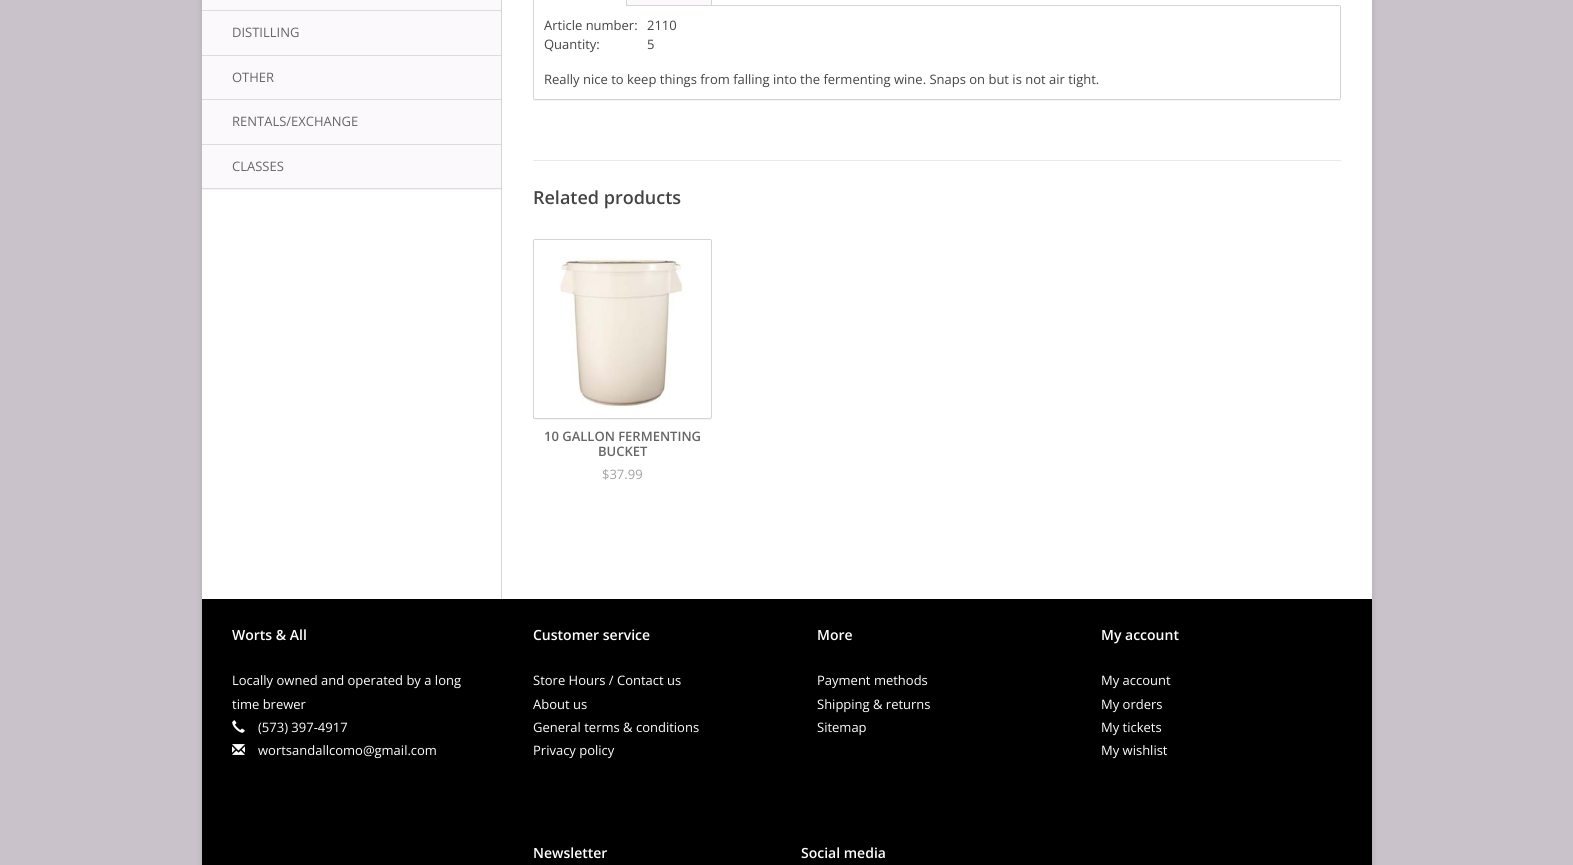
#include <cairo.h>
#include <math.h>
#include <stddef.h>


static void set_color(cairo_t *cr, unsigned color) {
    cairo_set_source_rgb(cr, (color >> 16) / 255.0, (color >> 8 & 255) / 255.0, (color & 255) / 255.0);
}

static void draw_text(cairo_t *cr, double x, double y, const char *s, const char *family, double size, int italic, int bold, unsigned color) {
    cairo_select_font_face(cr, family, italic ? CAIRO_FONT_SLANT_ITALIC : CAIRO_FONT_SLANT_NORMAL,
        bold ? CAIRO_FONT_WEIGHT_BOLD : CAIRO_FONT_WEIGHT_NORMAL);
    cairo_set_font_size(cr, size);
    set_color(cr, color);
    cairo_move_to(cr, x, y);
    cairo_show_text(cr, s);
}

static void fill_rect(cairo_t *cr, double x, double y, double w, double h, unsigned color) {
    set_color(cr, color);
    cairo_rectangle(cr, x, y, w, h);
    cairo_fill(cr);
}

static void rounded_rect(cairo_t *cr, double x, double y, double w, double h, double r) {
    cairo_new_sub_path(cr);
    cairo_arc(cr, x + w - r, y + h - r, r, 0, M_PI / 2);
    cairo_arc(cr, x + r, y + h - r, r, M_PI / 2, M_PI);
    cairo_arc(cr, x + r, y + r, r, M_PI, 1.5 * M_PI);
    cairo_arc(cr, x + w - r, y + r, r, 1.5 * M_PI, 2 * M_PI);
    cairo_close_path(cr);
}

static void draw_shadow(cairo_t *cr, double x, double y, double w, double h, double r, double blur, double alpha) {
    cairo_push_group_with_content(cr, CAIRO_CONTENT_ALPHA);
    cairo_set_operator(cr, CAIRO_OPERATOR_SOURCE);
    for (int i = 15; i >= -15 && fmin(w, h) + blur * i / 3 > 0; i -= 2) {
        double e = blur * i / 6;
        cairo_set_source_rgba(cr, 0, 0, 0, alpha * erfc((i - 1) / 8.5) / 2);
        rounded_rect(cr, x - e, y - e, w + 2 * e, h + 2 * e, fmax(0, fmin(r + e + blur * .6, fmin(w, h) / 2 + e)));
        cairo_fill(cr);
    }
    cairo_pattern_t *soft = cairo_pop_group(cr);
    cairo_mask(cr, soft);
    cairo_pattern_destroy(soft);
}

static void draw_image(cairo_t *cr, const char *path, double x, double y, double w, double h) {
    cairo_surface_t *image = cairo_image_surface_create_from_png(path);
    cairo_save(cr);
    cairo_set_source_surface(cr, image, x, y);
    cairo_rectangle(cr, x, y, w, h);
    cairo_fill(cr);
    cairo_restore(cr);
    cairo_surface_destroy(image);
}

int main(void) {
    cairo_surface_t *surface = cairo_image_surface_create(CAIRO_FORMAT_RGB24, 1573, 865);
    cairo_t *cr = cairo_create(surface);
    cairo_font_options_t *options = cairo_font_options_create();
    cairo_font_options_set_hint_metrics(options, CAIRO_HINT_METRICS_OFF);
    cairo_font_options_set_hint_style(options, CAIRO_HINT_STYLE_NONE);
    cairo_set_font_options(cr, options);
    cairo_set_miter_limit(cr, 4);
    set_color(cr, 0xC9C2CA);
    cairo_paint(cr);
    set_color(cr, 0x000000);
    draw_shadow(cr, 202, -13, 1170, 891, 2, 3.5, 0.13);
    fill_rect(cr, 202, 0, 1170, 599, 0xFFFFFF);
    fill_rect(cr, 202, 0, 299, 10, 0xFCF9FC);
    fill_rect(cr, 202, 11, 299, 44, 0xFCF9FC);
    fill_rect(cr, 202, 10, 299, 1, 0xDDDBDD);
    draw_text(cr, 232, 37, "DISTILLING", "Open Sans", 13, 0, 0, 0x666666);
    fill_rect(cr, 202, 56, 299, 43, 0xFCF9FC);
    fill_rect(cr, 202, 55, 299, 1, 0xDDDBDD);
    draw_text(cr, 232, 82, "OTHER", "Open Sans", 13, 0, 0, 0x666666);
    fill_rect(cr, 202, 100, 299, 44, 0xFCF9FC);
    fill_rect(cr, 202, 99, 299, 1, 0xDDDBDD);
    draw_text(cr, 232, 126, "RENTALS/EXCHANGE", "Open Sans", 13, 0, 0, 0x666666);
    fill_rect(cr, 202, 189, 299, 1, 0xF5F5F5);
    fill_rect(cr, 202, 145, 299, 43, 0xFCF9FC);
    fill_rect(cr, 202, 144, 299, 1, 0xDDDBDD);
    fill_rect(cr, 202, 188, 299, 1, 0xDDDBDD);
    draw_text(cr, 232, 171, "CLASSES", "Open Sans", 13, 0, 0, 0x666666);
    fill_rect(cr, 501, 0, 1, 599, 0xD4D4D4);
    fill_rect(cr, 533, 100, 808, 1, 0xF5F5F5);
    cairo_new_path(cr);
    cairo_move_to(cr, 533.5, 5.5);
    cairo_line_to(cr, 1339, 5.5);
    cairo_curve_to(cr, 1340, 5.5, 1340.5, 6, 1340.5, 7);
    cairo_line_to(cr, 1340.5, 98);
    cairo_curve_to(cr, 1340.5, 99, 1340, 99.5, 1339, 99.5);
    cairo_line_to(cr, 535, 99.5);
    cairo_curve_to(cr, 534, 99.5, 533.5, 99, 533.5, 98);
    cairo_close_path(cr);
    set_color(cr, 0xD4D4D4);
    cairo_set_line_width(cr, 1);
    cairo_stroke(cr);
    fill_rect(cr, 533, 5, 94, 1, 0xFFFFFF);
    fill_rect(cr, 626, 0, 1, 6, 0xD4D4D4);
    fill_rect(cr, 533, 0, 1, 6, 0xD4D4D4);
    fill_rect(cr, 626, 0, 86, 5, 0xFCF9FC);
    fill_rect(cr, 711, 0, 1, 5, 0xD4D4D4);
    fill_rect(cr, 626, 0, 1, 5, 0xD4D4D4);
    draw_text(cr, 544, 30, "Article number:", "Open Sans", 13, 0, 0, 0x444444);
    draw_text(cr, 647, 30, "2110", "Open Sans", 13, 0, 0, 0x444444);
    draw_text(cr, 544, 49, "Quantity:", "Open Sans", 13, 0, 0, 0x444444);
    draw_text(cr, 647, 49, "5", "Open Sans", 13, 0, 0, 0x444444);
    draw_text(cr, 544, 84, "Really nice to keep things from falling into the fermenting wine. Snaps on but is not air tight.", "Open Sans", 13, 0, 0, 0x444444);
    fill_rect(cr, 533, 160, 808, 1, 0xE9E9E9);
    draw_text(cr, 533, 204, "Related products", "Open Sans SemiBold", 18, 0, 0, 0x444444);
    set_color(cr, 0xF5F5F5);
    cairo_new_path(cr);
    cairo_move_to(cr, 533, 417);
    cairo_curve_to(cr, 533, 418, 533, 420, 535, 420);
    cairo_line_to(cr, 711, 420);
    cairo_curve_to(cr, 712, 419, 712, 418, 712, 417);
    cairo_curve_to(cr, 712, 418, 711, 419, 710, 419);
    cairo_line_to(cr, 535, 419);
    cairo_curve_to(cr, 534, 419, 533, 418, 533, 417);
    cairo_close_path(cr);
    cairo_fill(cr);
    rounded_rect(cr, 533.5, 239.5, 178, 179, 1.5);
    set_color(cr, 0xD4D4D4);
    cairo_stroke(cr);
    draw_image(cr, "assets/img1.png", 556, 257, 128, 152);
    draw_text(cr, 544, 441, "10 GALLON FERMENTING", "Open Sans SemiBold", 13, 0, 0, 0x666666);
    draw_text(cr, 598, 456, "BUCKET", "Open Sans SemiBold", 13, 0, 0, 0x666666);
    draw_text(cr, 602, 479, "$37.99", "Open Sans", 13, 0, 0, 0xA1A1A1);
    fill_rect(cr, 202, 599, 1170, 266, 0x000000);
    draw_text(cr, 232, 640, "Worts & All", "Open Sans SemiBold", 14, 0, 0, 0xFFFFFF);
    draw_text(cr, 232, 685, "Locally owned and operated by a long", "Open Sans", 13, 0, 0, 0xFFFFFF);
    draw_text(cr, 232, 709, "time brewer", "Open Sans", 13, 0, 0, 0xFFFFFF);
    draw_image(cr, "assets/img2.png", 232, 720, 13, 13);
    draw_text(cr, 258, 732, "(573) 397-4917", "Open Sans", 13, 0, 0, 0xFFFFFF);
    draw_image(cr, "assets/img3.png", 232, 744, 13, 11);
    draw_text(cr, 258, 755, "wortsandallcomo@gmail.com", "Open Sans", 13, 0, 0, 0xFFFFFF);
    draw_text(cr, 533, 640, "Customer service", "Open Sans SemiBold", 14, 0, 0, 0xFFFFFF);
    draw_text(cr, 533, 685, "Store Hours / Contact us", "Open Sans", 13, 0, 0, 0xFFFFFF);
    draw_text(cr, 533, 709, "About us", "Open Sans", 13, 0, 0, 0xFFFFFF);
    draw_text(cr, 533, 732, "General terms & conditions", "Open Sans", 13, 0, 0, 0xFFFFFF);
    draw_text(cr, 533, 755, "Privacy policy", "Open Sans", 13, 0, 0, 0xFFFFFF);
    draw_text(cr, 817, 640, "More", "Open Sans SemiBold", 14, 0, 0, 0xFFFFFF);
    draw_text(cr, 817, 685, "Payment methods", "Open Sans", 13, 0, 0, 0xFFFFFF);
    draw_text(cr, 817, 709, "Shipping & returns", "Open Sans", 13, 0, 0, 0xFFFFFF);
    draw_text(cr, 817, 732, "Sitemap", "Open Sans", 13, 0, 0, 0xFFFFFF);
    draw_text(cr, 1101, 640, "My account", "Open Sans SemiBold", 14, 0, 0, 0xFFFFFF);
    draw_text(cr, 1101, 685, "My account", "Open Sans", 13, 0, 0, 0xFFFFFF);
    draw_text(cr, 1101, 709, "My orders", "Open Sans", 13, 0, 0, 0xFFFFFF);
    draw_text(cr, 1101, 732, "My tickets", "Open Sans", 13, 0, 0, 0xFFFFFF);
    draw_text(cr, 1101, 755, "My wishlist", "Open Sans", 13, 0, 0, 0xFFFFFF);
    draw_text(cr, 533, 858, "Newsletter", "Open Sans SemiBold", 14, 0, 0, 0xFFFFFF);
    draw_text(cr, 801, 858, "Social media", "Open Sans SemiBold", 14, 0, 0, 0xFFFFFF);
    cairo_surface_write_to_png(surface, "output.png");
    cairo_font_options_destroy(options);
    cairo_destroy(cr);
    cairo_surface_destroy(surface);
    return 0;
}
